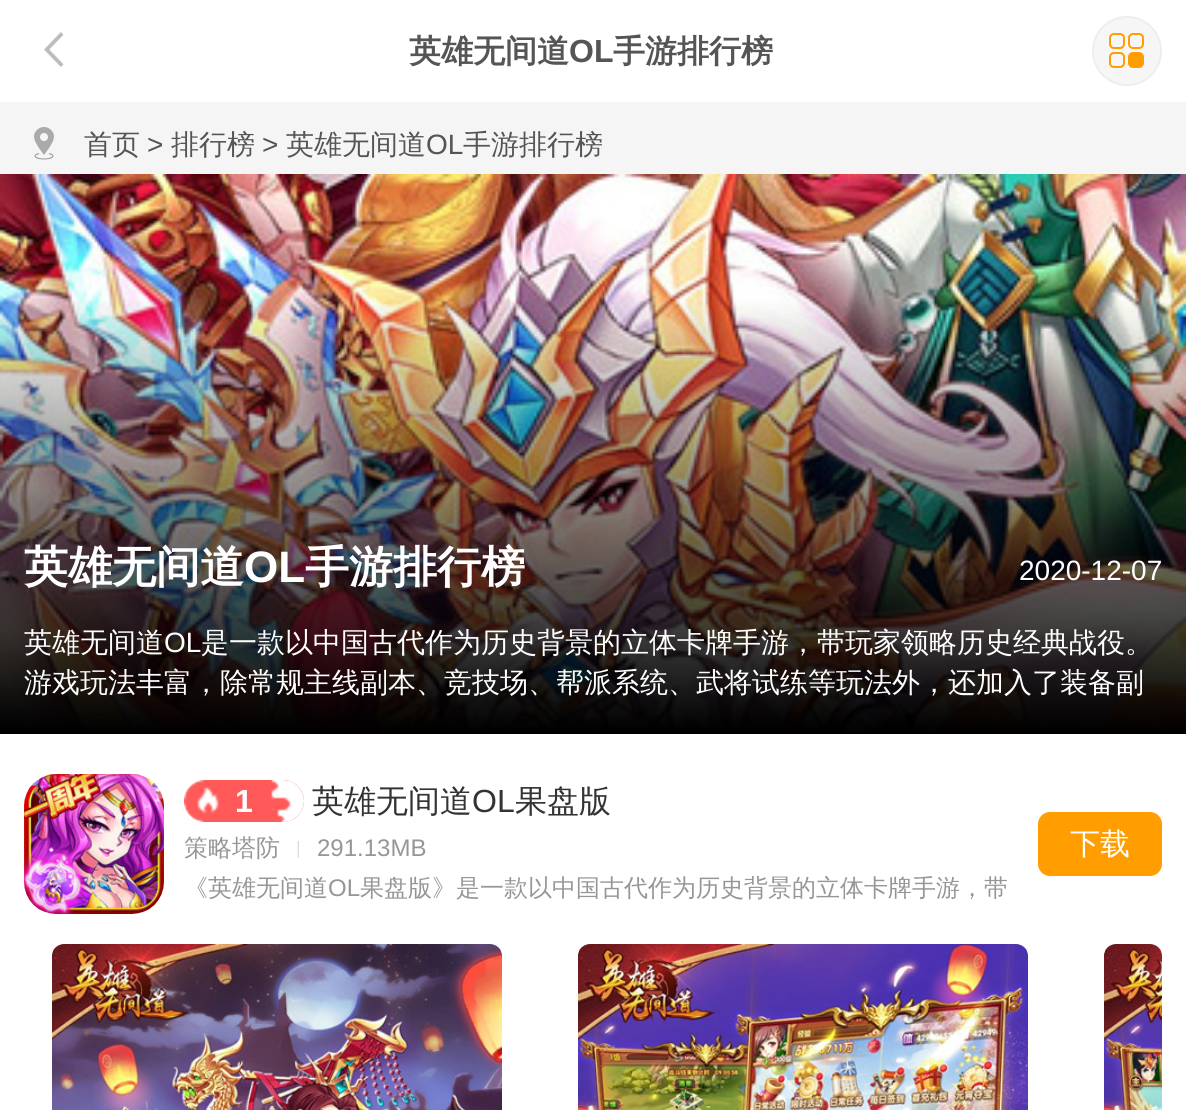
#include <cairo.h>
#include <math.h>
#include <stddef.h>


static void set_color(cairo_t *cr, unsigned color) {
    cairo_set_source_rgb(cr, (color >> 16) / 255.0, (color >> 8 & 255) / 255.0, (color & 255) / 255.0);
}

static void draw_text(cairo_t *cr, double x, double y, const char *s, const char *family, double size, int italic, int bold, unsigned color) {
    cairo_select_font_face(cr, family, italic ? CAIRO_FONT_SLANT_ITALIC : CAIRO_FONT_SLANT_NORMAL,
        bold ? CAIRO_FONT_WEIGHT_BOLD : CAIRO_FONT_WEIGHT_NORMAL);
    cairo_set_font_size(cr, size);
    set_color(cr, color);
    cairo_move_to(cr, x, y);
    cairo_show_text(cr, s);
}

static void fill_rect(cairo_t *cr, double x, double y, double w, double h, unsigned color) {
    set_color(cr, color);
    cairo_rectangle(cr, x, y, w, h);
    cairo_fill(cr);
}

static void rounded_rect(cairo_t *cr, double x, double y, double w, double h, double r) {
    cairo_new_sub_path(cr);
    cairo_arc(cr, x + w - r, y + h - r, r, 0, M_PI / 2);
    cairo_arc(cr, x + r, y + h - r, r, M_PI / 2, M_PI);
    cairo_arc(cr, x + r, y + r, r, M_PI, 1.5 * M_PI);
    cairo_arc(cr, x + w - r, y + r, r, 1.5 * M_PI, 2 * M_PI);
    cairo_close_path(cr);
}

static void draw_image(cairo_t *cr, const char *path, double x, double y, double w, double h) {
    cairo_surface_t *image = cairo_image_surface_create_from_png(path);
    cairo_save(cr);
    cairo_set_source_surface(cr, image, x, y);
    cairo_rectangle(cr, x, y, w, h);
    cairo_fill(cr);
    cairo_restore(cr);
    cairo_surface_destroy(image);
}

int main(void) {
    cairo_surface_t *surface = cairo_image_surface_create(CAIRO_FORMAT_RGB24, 1186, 1110);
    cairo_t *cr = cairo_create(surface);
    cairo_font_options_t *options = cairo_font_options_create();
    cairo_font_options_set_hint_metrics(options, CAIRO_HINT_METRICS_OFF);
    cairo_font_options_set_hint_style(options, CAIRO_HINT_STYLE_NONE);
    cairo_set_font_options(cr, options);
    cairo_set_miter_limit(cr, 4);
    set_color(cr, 0xF5F5F5);
    cairo_paint(cr);
    fill_rect(cr, 0, 0, 1186, 102, 0xFFFFFF);
    draw_image(cr, "assets/img1.png", 44, 32, 20, 35);
    draw_text(cr, 409, 62, "英雄无间道", "WenQuanYi Zen Hei", 32, 0, 1, 0x555555);
    draw_text(cr, 569, 62, "OL", "Liberation Sans", 32, 0, 1, 0x555555);
    draw_text(cr, 613, 62, "手游排行榜", "WenQuanYi Zen Hei", 32, 0, 1, 0x555555);
    set_color(cr, 0xF6F6F6);
    cairo_new_path(cr);
    cairo_arc(cr, 1127, 51, 35, 0, 2 * M_PI);
    cairo_fill(cr);
    draw_image(cr, "assets/img2.png", 1109, 33, 35, 35);
    cairo_arc(cr, 1127, 51, 34, 0, 2 * M_PI);
    set_color(cr, 0xEEEEEE);
    cairo_stroke(cr);
    draw_image(cr, "assets/img3.png", 34, 127, 20, 33);
    draw_text(cr, 84, 154, "首页", "WenQuanYi Zen Hei Medium", 28, 0, 0, 0x555555);
    draw_text(cr, 147, 154, ">", "Liberation Sans", 28, 0, 0, 0x555555);
    draw_text(cr, 171, 154, "排行榜", "WenQuanYi Zen Hei Medium", 28, 0, 0, 0x555555);
    draw_text(cr, 262, 154, ">", "Liberation Sans", 28, 0, 0, 0x555555);
    draw_text(cr, 286, 154, "英雄无间道", "WenQuanYi Zen Hei Medium", 28, 0, 0, 0x555555);
    draw_text(cr, 426, 154, "OL", "Liberation Sans", 28, 0, 0, 0x555555);
    draw_text(cr, 463, 154, "手游排行榜", "WenQuanYi Zen Hei Medium", 28, 0, 0, 0x555555);
    draw_image(cr, "assets/img4.png", 0, 174, 1186, 560);
    draw_text(cr, 24, 582, "英雄无间道", "WenQuanYi Zen Hei", 44, 0, 1, 0xFFFFFF);
    draw_text(cr, 244, 582, "OL", "Liberation Sans", 44, 0, 1, 0xFFFFFF);
    draw_text(cr, 305, 582, "手游排行榜", "WenQuanYi Zen Hei", 44, 0, 1, 0xFFFFFF);
    draw_text(cr, 1019, 580, "2020-12-07", "Liberation Sans", 28, 0, 0, 0xFFFFFF);
    draw_text(cr, 24, 652, "英雄无间道", "WenQuanYi Zen Hei Medium", 28, 0, 0, 0xFFFFFF);
    draw_text(cr, 164, 652, "OL", "Liberation Sans", 28, 0, 0, 0xFFFFFF);
    draw_text(cr, 201, 652, "是一款以中国古代作为历史背景的立体卡牌手游，带玩家领略历史经典战役。", "WenQuanYi Zen Hei Medium", 28, 0, 0, 0xFFFFFF);
    draw_text(cr, 24, 692, "游戏玩法丰富，除常规主线副本、竞技场、帮派系统、武将试练等玩法外，还加入了装备副", "WenQuanYi Zen Hei Medium", 28, 0, 0, 0xFFFFFF);
    fill_rect(cr, 0, 734, 1186, 376, 0xFFFFFF);
    draw_image(cr, "assets/img5.png", 24, 774, 140, 140);
    set_color(cr, 0xFF5959);
    rounded_rect(cr, 184, 780, 120, 42, 21);
    cairo_fill(cr);
    draw_image(cr, "assets/img6.png", 184, 780, 120, 42);
    draw_text(cr, 235, 812, "1", "Liberation Sans", 32, 0, 1, 0xFFFFFF);
    draw_text(cr, 312, 812, "英雄无间道", "WenQuanYi Zen Hei Medium", 32, 0, 0, 0x333333);
    draw_text(cr, 472, 812, "OL", "Liberation Sans", 32, 0, 0, 0x333333);
    draw_text(cr, 515, 812, "果盘版", "WenQuanYi Zen Hei Medium", 32, 0, 0, 0x333333);
    draw_text(cr, 184, 856, "策略塔防", "WenQuanYi Zen Hei Medium", 24, 0, 0, 0x969696);
    draw_text(cr, 296, 854, "|", "Liberation Sans", 18, 0, 0, 0xDDDDDD);
    draw_text(cr, 317, 856, "291.13MB", "Liberation Sans", 24, 0, 0, 0x969696);
    draw_text(cr, 184, 896, "《英雄无间道", "WenQuanYi Zen Hei Medium", 24, 0, 0, 0x969696);
    draw_text(cr, 328, 896, "OL", "Liberation Sans", 24, 0, 0, 0x969696);
    draw_text(cr, 360, 896, "果盘版》是一款以中国古代作为历史背景的立体卡牌手游，带", "WenQuanYi Zen Hei Medium", 24, 0, 0, 0x969696);
    set_color(cr, 0xFF9D01);
    rounded_rect(cr, 1039, 813, 122, 62, 11);
    cairo_fill_preserve(cr);
    cairo_stroke(cr);
    draw_text(cr, 1070, 854, "下载", "WenQuanYi Zen Hei Medium", 30, 0, 0, 0xFFFFFF);
    draw_image(cr, "assets/img7.png", 52, 944, 450, 166);
    draw_image(cr, "assets/img8.png", 578, 944, 450, 166);
    draw_image(cr, "assets/img9.png", 1104, 944, 58, 166);
    cairo_surface_write_to_png(surface, "output.png");
    cairo_font_options_destroy(options);
    cairo_destroy(cr);
    cairo_surface_destroy(surface);
    return 0;
}
